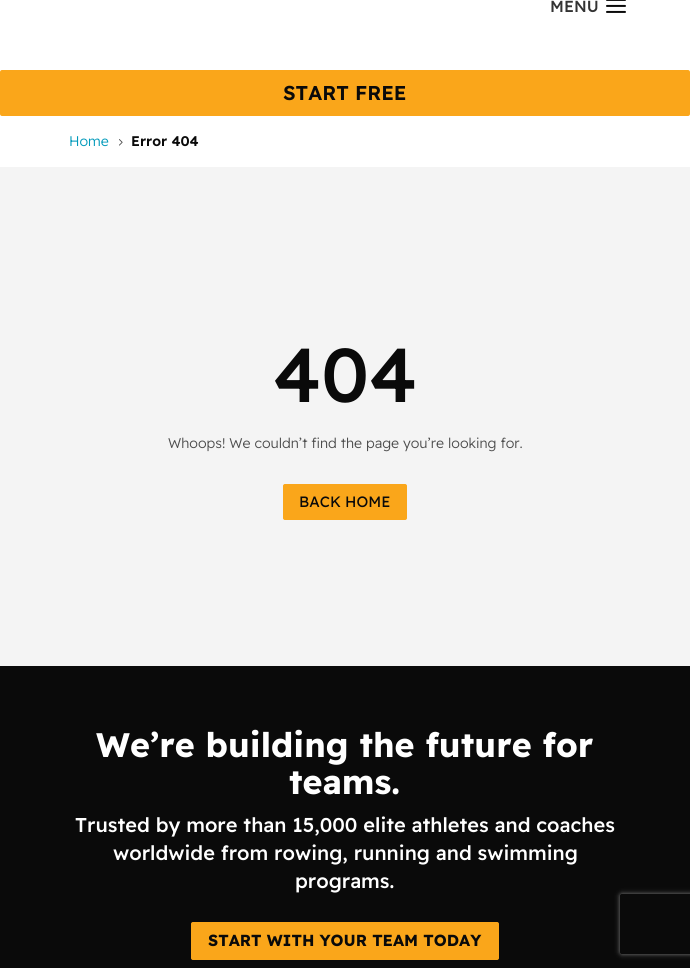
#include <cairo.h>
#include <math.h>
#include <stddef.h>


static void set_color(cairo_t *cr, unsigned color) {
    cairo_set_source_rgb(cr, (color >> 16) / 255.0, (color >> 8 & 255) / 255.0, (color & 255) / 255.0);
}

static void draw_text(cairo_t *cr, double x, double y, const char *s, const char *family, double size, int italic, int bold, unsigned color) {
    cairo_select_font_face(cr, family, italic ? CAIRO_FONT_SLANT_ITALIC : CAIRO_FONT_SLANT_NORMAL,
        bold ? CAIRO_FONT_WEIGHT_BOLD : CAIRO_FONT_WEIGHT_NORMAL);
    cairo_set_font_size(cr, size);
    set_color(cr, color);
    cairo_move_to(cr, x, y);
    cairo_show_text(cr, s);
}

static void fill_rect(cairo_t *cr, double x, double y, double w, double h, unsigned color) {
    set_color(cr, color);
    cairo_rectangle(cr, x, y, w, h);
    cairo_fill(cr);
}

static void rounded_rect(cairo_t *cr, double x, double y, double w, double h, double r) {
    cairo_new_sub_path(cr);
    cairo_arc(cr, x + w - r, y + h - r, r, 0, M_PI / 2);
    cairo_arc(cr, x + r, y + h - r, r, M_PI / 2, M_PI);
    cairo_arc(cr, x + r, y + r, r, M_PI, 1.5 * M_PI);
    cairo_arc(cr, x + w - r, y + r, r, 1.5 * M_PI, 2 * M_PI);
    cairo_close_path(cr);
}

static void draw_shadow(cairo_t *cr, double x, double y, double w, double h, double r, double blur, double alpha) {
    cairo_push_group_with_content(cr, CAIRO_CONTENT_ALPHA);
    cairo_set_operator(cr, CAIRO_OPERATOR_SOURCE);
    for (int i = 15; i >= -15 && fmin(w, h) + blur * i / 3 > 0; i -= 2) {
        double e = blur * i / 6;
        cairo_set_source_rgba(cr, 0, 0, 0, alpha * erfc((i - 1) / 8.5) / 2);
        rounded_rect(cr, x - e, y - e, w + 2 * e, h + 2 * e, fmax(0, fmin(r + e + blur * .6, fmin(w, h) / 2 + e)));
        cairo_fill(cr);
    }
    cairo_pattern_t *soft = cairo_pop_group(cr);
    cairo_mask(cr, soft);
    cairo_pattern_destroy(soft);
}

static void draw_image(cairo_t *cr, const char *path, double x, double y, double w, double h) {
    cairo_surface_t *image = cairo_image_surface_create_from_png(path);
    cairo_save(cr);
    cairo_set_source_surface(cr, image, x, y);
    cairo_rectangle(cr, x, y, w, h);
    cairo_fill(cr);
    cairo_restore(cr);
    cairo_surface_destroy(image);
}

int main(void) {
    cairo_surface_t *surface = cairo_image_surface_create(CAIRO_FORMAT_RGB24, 690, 968);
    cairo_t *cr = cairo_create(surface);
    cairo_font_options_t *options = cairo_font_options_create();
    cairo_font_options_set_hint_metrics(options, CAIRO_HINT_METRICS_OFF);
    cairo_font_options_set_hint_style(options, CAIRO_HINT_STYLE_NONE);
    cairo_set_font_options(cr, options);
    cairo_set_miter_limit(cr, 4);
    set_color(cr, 0xFFFFFF);
    cairo_paint(cr);
    draw_text(cr, 550, 12, "MENU", "Readex Pro Medium", 16, 0, 0, 0x333333);
    draw_image(cr, "assets/img1.png", 606, 0, 20, 13);
    set_color(cr, 0xFAA61A);
    rounded_rect(cr, 0, 70, 690, 46, 2);
    cairo_fill(cr);
    draw_text(cr, 283, 100, "START FREE", "Readex Pro SemiBold", 20, 0, 0, 0x0A0A0A);
    draw_text(cr, 69, 146, "Home", "Readex Pro Light", 14, 0, 0, 0x0099BA);
    draw_image(cr, "assets/img2.png", 119, 139, 4, 7);
    draw_text(cr, 131, 146, "Error 404", "Readex Pro SemiBold", 14, 0, 0, 0x0A0A0A);
    fill_rect(cr, 0, 167, 690, 499, 0xF4F4F4);
    draw_text(cr, 273, 402, "404", "Readex Pro Medium", 76, 0, 0, 0x0A0A0A);
    draw_text(cr, 168, 448, "Whoops! We couldn’t find the page you’re looking for.", "Readex Pro Light", 14, 0, 0, 0x4D4D4D);
    set_color(cr, 0xFAA61A);
    rounded_rect(cr, 283.5, 484.5, 123, 35, 1.5);
    cairo_fill_preserve(cr);
    cairo_set_line_width(cr, 1);
    cairo_stroke(cr);
    draw_text(cr, 299, 507, "BACK HOME", "Readex Pro", 15, 0, 0, 0x0A0A0A);
    fill_rect(cr, 0, 666, 690, 302, 0x0A0A0A);
    draw_text(cr, 96, 757, "We’re building the future for", "Readex Pro", 34, 0, 1, 0xFFFFFF);
    draw_text(cr, 289, 794, "teams.", "Readex Pro", 34, 0, 1, 0xFFFFFF);
    draw_text(cr, 75, 832, "Trusted by more than 15,000 elite athletes and coaches", "Readex Pro Medium", 20, 0, 0, 0xFFFFFF);
    draw_text(cr, 113, 860, "worldwide from rowing, running and swimming", "Readex Pro Medium", 20, 0, 0, 0xFFFFFF);
    draw_text(cr, 295, 888, "programs.", "Readex Pro Medium", 20, 0, 0, 0xFFFFFF);
    set_color(cr, 0xFAA61A);
    rounded_rect(cr, 191.5, 922.5, 307, 37, 1.5);
    cairo_fill_preserve(cr);
    cairo_stroke(cr);
    draw_text(cr, 208, 946, "START WITH YOUR TEAM TODAY", "Readex Pro", 16, 0, 1, 0x0A0A0A);
    cairo_save(cr);
    cairo_set_fill_rule(cr, CAIRO_FILL_RULE_EVEN_ODD);
    cairo_new_path(cr);
    cairo_move_to(cr, 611, 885);
    cairo_line_to(cr, 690, 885);
    cairo_line_to(cr, 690, 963);
    cairo_line_to(cr, 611, 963);
    cairo_close_path(cr);
    cairo_move_to(cr, 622, 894);
    cairo_line_to(cr, 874, 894);
    cairo_curve_to(cr, 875, 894, 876, 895, 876, 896);
    cairo_line_to(cr, 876, 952);
    cairo_curve_to(cr, 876, 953, 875, 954, 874, 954);
    cairo_line_to(cr, 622, 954);
    cairo_curve_to(cr, 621, 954, 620, 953, 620, 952);
    cairo_line_to(cr, 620, 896);
    cairo_curve_to(cr, 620, 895, 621, 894, 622, 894);
    cairo_close_path(cr);
    cairo_clip(cr);
    set_color(cr, 0x808080);
    draw_shadow(cr, 620, 894, 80, 60, 2, 2.5, 1);
    cairo_restore(cr);
    cairo_surface_write_to_png(surface, "output.png");
    cairo_font_options_destroy(options);
    cairo_destroy(cr);
    cairo_surface_destroy(surface);
    return 0;
}
